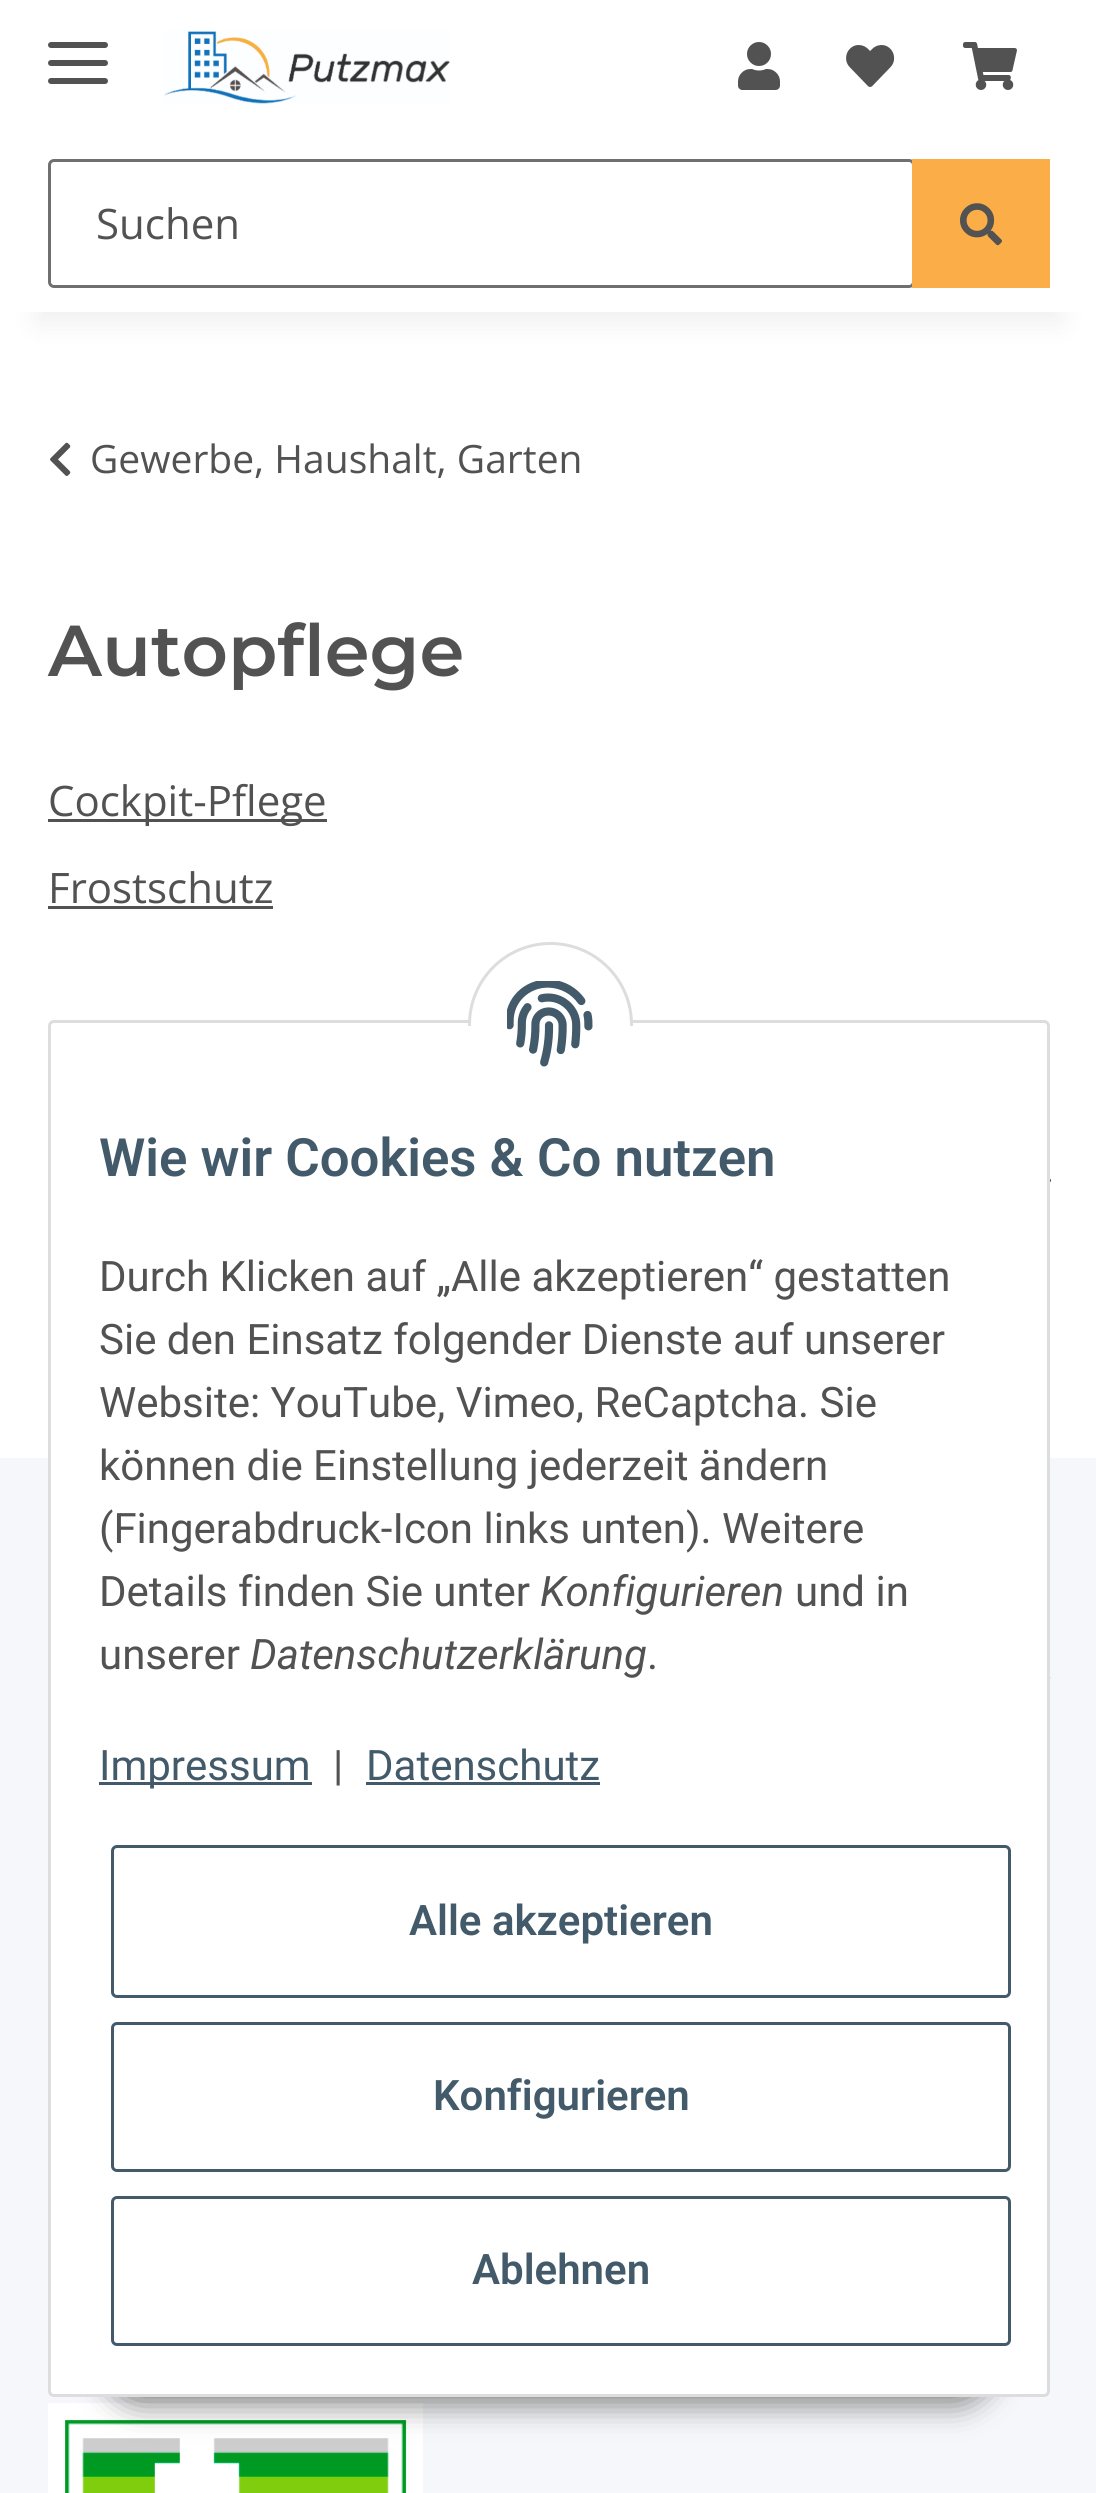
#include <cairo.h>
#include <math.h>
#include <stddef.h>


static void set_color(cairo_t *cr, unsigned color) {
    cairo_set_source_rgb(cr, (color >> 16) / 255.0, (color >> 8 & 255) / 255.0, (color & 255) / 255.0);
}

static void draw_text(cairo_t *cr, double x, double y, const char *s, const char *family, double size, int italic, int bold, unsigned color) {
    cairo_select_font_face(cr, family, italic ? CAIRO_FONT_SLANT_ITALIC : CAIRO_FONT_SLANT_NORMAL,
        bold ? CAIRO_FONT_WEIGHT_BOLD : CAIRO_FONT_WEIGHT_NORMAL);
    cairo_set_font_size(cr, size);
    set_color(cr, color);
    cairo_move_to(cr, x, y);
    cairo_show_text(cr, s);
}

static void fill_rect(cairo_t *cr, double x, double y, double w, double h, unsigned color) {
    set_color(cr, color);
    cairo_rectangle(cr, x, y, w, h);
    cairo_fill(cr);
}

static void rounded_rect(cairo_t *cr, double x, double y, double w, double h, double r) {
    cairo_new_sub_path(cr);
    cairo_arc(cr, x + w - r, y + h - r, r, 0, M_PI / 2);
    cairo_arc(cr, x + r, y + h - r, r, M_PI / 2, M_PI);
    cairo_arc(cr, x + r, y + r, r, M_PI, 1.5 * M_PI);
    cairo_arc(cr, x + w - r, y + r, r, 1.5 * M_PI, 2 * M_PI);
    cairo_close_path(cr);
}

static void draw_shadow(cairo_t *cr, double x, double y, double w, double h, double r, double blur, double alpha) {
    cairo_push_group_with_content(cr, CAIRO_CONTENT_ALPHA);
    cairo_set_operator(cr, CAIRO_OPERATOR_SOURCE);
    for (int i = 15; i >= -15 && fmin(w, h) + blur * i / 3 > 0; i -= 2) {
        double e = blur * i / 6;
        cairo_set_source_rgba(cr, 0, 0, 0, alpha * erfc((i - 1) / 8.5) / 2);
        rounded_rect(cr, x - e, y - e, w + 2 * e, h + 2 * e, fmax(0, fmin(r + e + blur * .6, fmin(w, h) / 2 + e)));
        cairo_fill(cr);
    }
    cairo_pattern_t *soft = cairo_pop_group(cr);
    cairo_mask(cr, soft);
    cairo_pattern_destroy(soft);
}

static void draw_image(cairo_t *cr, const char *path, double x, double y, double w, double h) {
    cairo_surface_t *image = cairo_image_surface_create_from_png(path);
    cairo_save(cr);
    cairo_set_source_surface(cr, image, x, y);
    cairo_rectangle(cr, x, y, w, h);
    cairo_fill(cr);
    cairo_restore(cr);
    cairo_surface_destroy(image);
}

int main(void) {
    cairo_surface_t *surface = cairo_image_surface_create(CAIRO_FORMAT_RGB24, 1096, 2493);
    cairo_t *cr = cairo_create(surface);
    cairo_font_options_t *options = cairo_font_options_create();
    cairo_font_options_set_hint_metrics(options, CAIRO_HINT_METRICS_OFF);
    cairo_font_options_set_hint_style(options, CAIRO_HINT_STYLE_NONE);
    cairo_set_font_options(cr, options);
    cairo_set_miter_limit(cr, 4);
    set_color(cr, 0xF5F7FA);
    cairo_paint(cr);
    fill_rect(cr, 0, 312, 1096, 1146, 0xFFFFFF);
    set_color(cr, 0x000000);
    draw_shadow(cr, 36, 84, 1026, 240, 0, 13.5, 0.06);
    fill_rect(cr, 0, 0, 1096, 312, 0xFFFFFF);
    set_color(cr, 0x525252);
    rounded_rect(cr, 48, 60, 60, 6, 3);
    cairo_fill(cr);
    rounded_rect(cr, 48, 42, 60, 6, 3);
    cairo_fill(cr);
    rounded_rect(cr, 48, 78, 60, 6, 3);
    cairo_fill(cr);
    draw_image(cr, "assets/img1.png", 164, 30, 286, 74);
    draw_image(cr, "assets/img2.png", 738, 42, 42, 48);
    draw_image(cr, "assets/img3.png", 846, 45, 49, 42);
    draw_image(cr, "assets/img4.png", 963, 42, 54, 48);
    rounded_rect(cr, 49.5, 160.5, 864, 126, 4.5);
    set_color(cr, 0x707070);
    cairo_set_line_width(cr, 3);
    cairo_stroke(cr);
    draw_text(cr, 96, 239, "Suchen", "Open Sans", 42, 0, 0, 0x525252);
    fill_rect(cr, 912, 159, 138, 129, 0xFBAE48);
    draw_image(cr, "assets/img5.png", 960, 203, 42, 43);
    draw_image(cr, "assets/img6.png", 50, 442, 21, 34);
    draw_text(cr, 90, 473, "Gewerbe, Haushalt, Garten", "Open Sans", 39, 0, 0, 0x525252);
    draw_text(cr, 48, 676, "Autopflege", "Montserrat SemiBold", 72, 0, 0, 0x525252);
    fill_rect(cr, 48, 819, 279, 3, 0x525252);
    draw_text(cr, 48, 816, "Cockpit-Pflege", "Open Sans", 42, 0, 0, 0x525252);
    draw_text(cr, 48, 903, "Frostschutz", "Open Sans", 42, 0, 0, 0x525252);
    fill_rect(cr, 48, 906, 225, 3, 0x525252);
    draw_image(cr, "assets/img7.png", 1050, 1178, 2, 5);
    draw_image(cr, "assets/img10.png", 48, 2403, 375, 90);
    set_color(cr, 0x000000);
    draw_shadow(cr, 102, 2310, 894, 96, 48, 15, 0.45);
    set_color(cr, 0xFFFFFF);
    rounded_rect(cr, 49.5, 1021.5, 999, 1374, 4.5);
    cairo_fill_preserve(cr);
    set_color(cr, 0xDDDDDD);
    cairo_stroke(cr);
    set_color(cr, 0xFFFFFF);
    cairo_arc(cr, 550.5, 1024.5, 81, 0, 2 * M_PI);
    cairo_fill_preserve(cr);
    set_color(cr, 0xDDDDDD);
    cairo_stroke(cr);
    fill_rect(cr, 468, 1026, 165, 81, 0xFFFFFF);
    draw_image(cr, "assets/img8.png", 507, 981, 86, 86);
    draw_text(cr, 99, 1176, "Wie wir Cookies & Co nutzen", "Roboto SemiBold", 52.75, 0, 0, 0x435A6B);
    draw_text(cr, 99, 1291, "Durch Klicken auf „Alle akzeptieren“ gestatten", "Roboto", 42, 0, 0, 0x525252);
    draw_text(cr, 99, 1354, "Sie den Einsatz folgender Dienste auf unserer", "Roboto", 42, 0, 0, 0x525252);
    draw_text(cr, 99, 1417, "Website: YouTube, Vimeo, ReCaptcha. Sie", "Roboto", 42, 0, 0, 0x525252);
    draw_text(cr, 99, 1480, "können die Einstellung jederzeit ändern", "Roboto", 42, 0, 0, 0x525252);
    draw_text(cr, 99, 1543, "(Fingerabdruck-Icon links unten). Weitere", "Roboto", 42, 0, 0, 0x525252);
    draw_text(cr, 99, 1606, "Details finden Sie unter", "Roboto", 42, 0, 0, 0x525252);
    draw_text(cr, 540, 1606, "Konfigurieren", "Roboto", 42, 1, 0, 0x525252);
    draw_text(cr, 795, 1606, "und in", "Roboto", 42, 0, 0, 0x525252);
    draw_text(cr, 99, 1669, "unserer", "Roboto", 42, 0, 0, 0x525252);
    draw_text(cr, 250, 1669, "Datenschutzerklärung", "Roboto", 42, 1, 0, 0x525252);
    draw_text(cr, 647, 1669, ".", "Roboto", 42, 0, 0, 0x525252);
    fill_rect(cr, 99, 1782, 213, 3, 0x435A6B);
    draw_text(cr, 99, 1780, "Impressum", "Roboto", 42, 0, 0, 0x435A6B);
    draw_text(cr, 333, 1780, "|", "Roboto", 42, 0, 0, 0x525252);
    draw_text(cr, 366, 1780, "Datenschutz", "Roboto", 42, 0, 0, 0x435A6B);
    fill_rect(cr, 366, 1782, 234, 3, 0x435A6B);
    rounded_rect(cr, 112.5, 1846.5, 897, 150, 4.5);
    cairo_stroke(cr);
    draw_text(cr, 409, 1935, "Alle akzeptieren", "Roboto SemiBold", 42, 0, 0, 0x435A6B);
    rounded_rect(cr, 112.5, 2023.5, 897, 147, 4.5);
    cairo_stroke(cr);
    draw_text(cr, 433, 2110, "Konfigurieren", "Roboto SemiBold", 42, 0, 0, 0x435A6B);
    rounded_rect(cr, 112.5, 2197.5, 897, 147, 4.5);
    cairo_stroke(cr);
    draw_text(cr, 472, 2284, "Ablehnen", "Roboto SemiBold", 42, 0, 0, 0x435A6B);
    draw_image(cr, "assets/img9.png", 1050, 1677, 1, 2);
    cairo_surface_write_to_png(surface, "output.png");
    cairo_font_options_destroy(options);
    cairo_destroy(cr);
    cairo_surface_destroy(surface);
    return 0;
}
